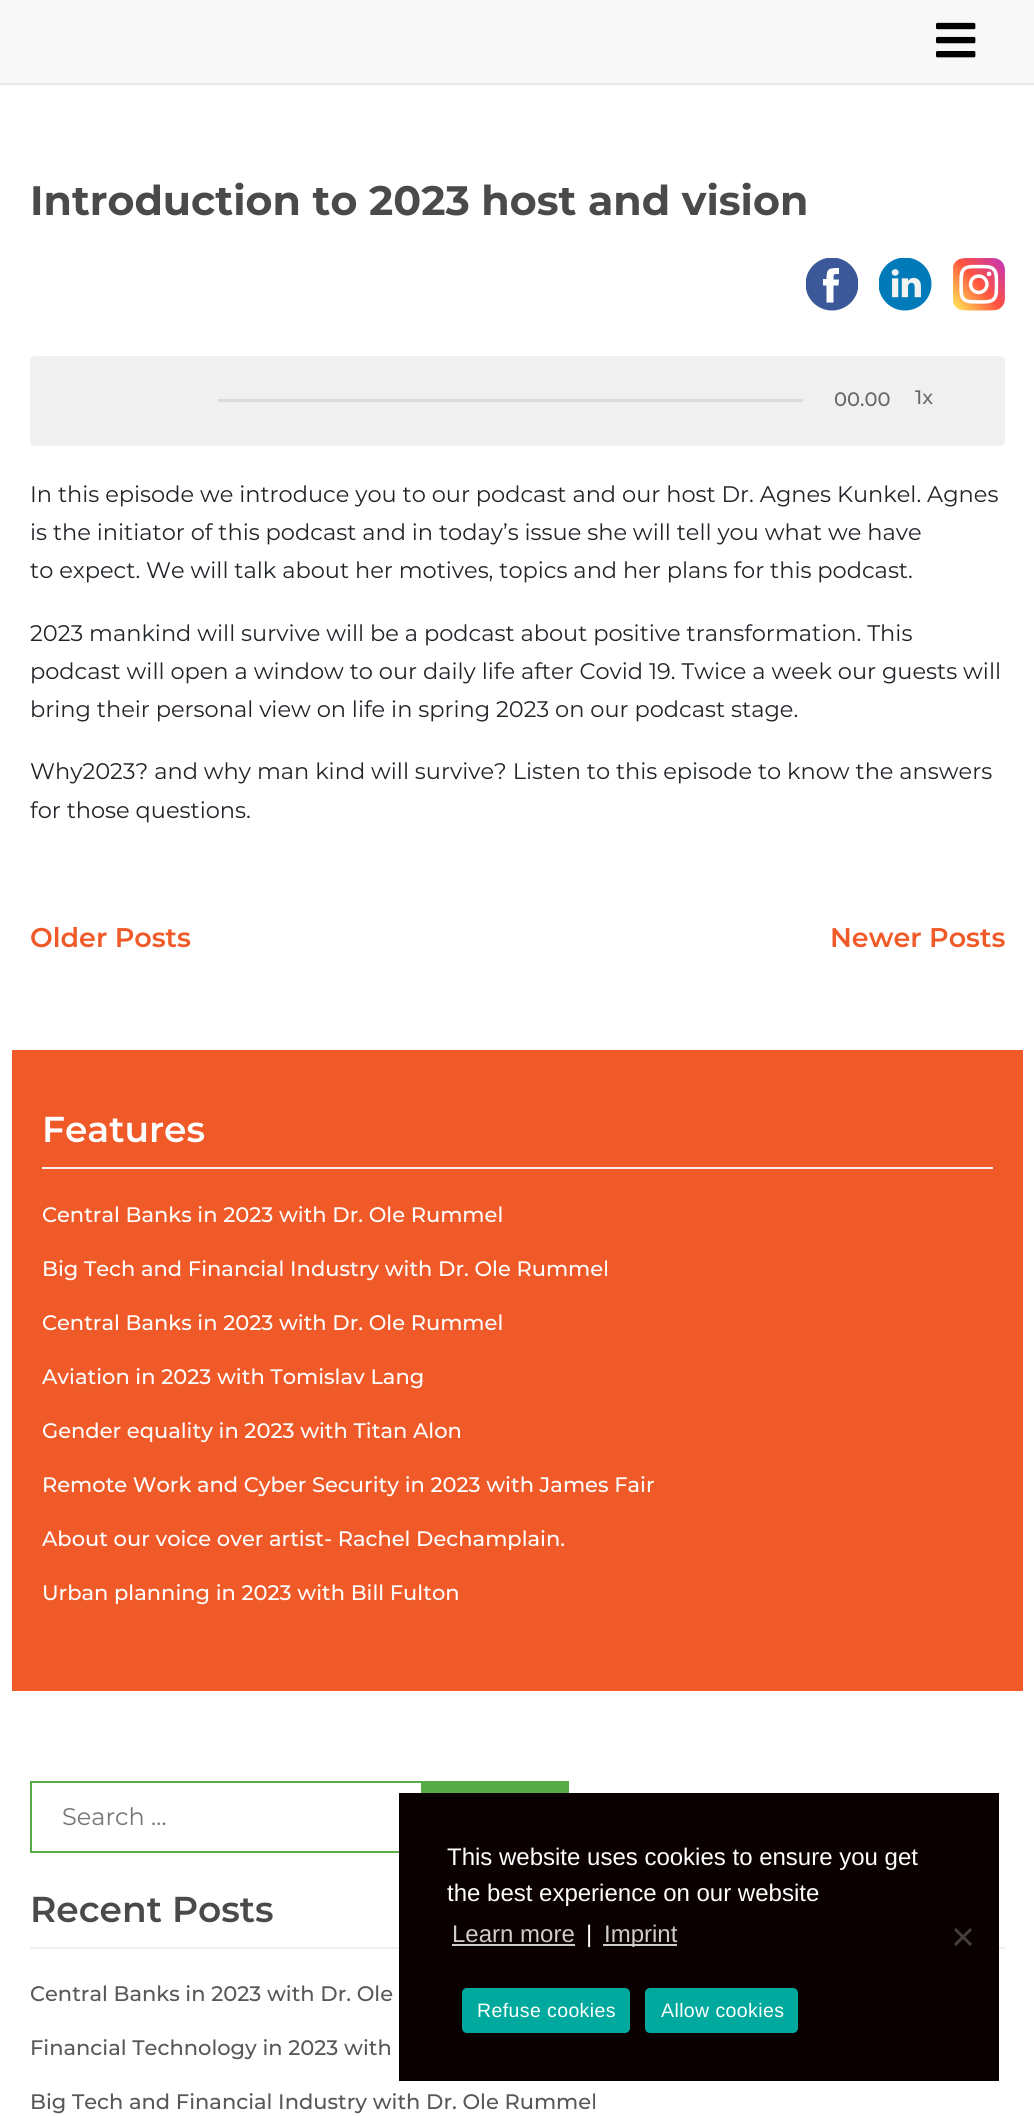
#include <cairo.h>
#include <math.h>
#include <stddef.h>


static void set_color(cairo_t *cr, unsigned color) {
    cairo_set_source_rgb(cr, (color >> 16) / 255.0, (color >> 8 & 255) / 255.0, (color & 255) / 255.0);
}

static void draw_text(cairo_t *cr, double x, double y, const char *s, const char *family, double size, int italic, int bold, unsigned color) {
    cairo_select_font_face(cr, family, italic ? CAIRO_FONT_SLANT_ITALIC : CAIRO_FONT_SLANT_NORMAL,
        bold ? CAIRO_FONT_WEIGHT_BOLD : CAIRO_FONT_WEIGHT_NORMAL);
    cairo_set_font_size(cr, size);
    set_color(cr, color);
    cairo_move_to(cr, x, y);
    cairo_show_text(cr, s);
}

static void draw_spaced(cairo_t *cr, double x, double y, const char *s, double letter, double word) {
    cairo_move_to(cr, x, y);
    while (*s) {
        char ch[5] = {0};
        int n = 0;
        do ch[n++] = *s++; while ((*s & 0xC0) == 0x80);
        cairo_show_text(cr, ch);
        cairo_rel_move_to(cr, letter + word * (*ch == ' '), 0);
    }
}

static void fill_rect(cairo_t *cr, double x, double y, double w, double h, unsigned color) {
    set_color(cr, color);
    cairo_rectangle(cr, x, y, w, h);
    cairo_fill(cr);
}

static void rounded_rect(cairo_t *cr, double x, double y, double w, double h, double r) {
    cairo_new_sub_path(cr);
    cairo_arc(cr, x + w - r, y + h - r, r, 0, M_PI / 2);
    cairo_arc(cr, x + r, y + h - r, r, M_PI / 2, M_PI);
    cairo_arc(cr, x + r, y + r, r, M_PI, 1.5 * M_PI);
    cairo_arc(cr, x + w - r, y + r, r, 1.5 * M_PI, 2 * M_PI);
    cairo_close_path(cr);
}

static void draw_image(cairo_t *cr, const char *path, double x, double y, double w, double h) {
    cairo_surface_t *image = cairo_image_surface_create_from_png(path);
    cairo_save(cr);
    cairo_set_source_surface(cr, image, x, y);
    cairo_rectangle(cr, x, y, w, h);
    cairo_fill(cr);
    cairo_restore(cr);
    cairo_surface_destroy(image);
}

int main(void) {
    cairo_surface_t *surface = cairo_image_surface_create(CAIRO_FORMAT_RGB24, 1034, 2116);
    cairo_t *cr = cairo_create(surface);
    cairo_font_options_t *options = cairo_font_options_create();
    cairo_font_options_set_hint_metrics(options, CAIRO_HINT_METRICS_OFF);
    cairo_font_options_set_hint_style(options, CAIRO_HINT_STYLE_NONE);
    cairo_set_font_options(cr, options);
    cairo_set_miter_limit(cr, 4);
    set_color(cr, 0xFFFFFF);
    cairo_paint(cr);
    fill_rect(cr, 0, 0, 1034, 83, 0xF8F8F8);
    fill_rect(cr, 0, 83, 1034, 2, 0xE7E7E7);
    draw_image(cr, "assets/img1.png", 936, 22, 40, 36);
    draw_text(cr, 30, 215, "Introduction to 2023 host and vision", "Montserrat", 41.1, 0, 1, 0x4A4A4A);
    cairo_save(cr);
    cairo_rectangle(cr, 806, 258, 52, 53);
    cairo_clip(cr);
    set_color(cr, 0x3B5998);
    cairo_arc(cr, 832, 284, 26.5, 0, 2 * M_PI);
    cairo_fill(cr);
    cairo_restore(cr);
    set_color(cr, 0xFFFFFF);
    cairo_new_path(cr);
    cairo_move_to(cr, 838.5, 285.5);
    cairo_line_to(cr, 833.5, 285.5);
    cairo_line_to(cr, 833.5, 302.5);
    cairo_line_to(cr, 826.5, 302.5);
    cairo_line_to(cr, 826.5, 285.5);
    cairo_line_to(cr, 823, 285.5);
    cairo_line_to(cr, 823, 279);
    cairo_line_to(cr, 826.5, 279);
    cairo_curve_to(cr, 826.5, 268.5, 828.5, 268, 839, 268);
    cairo_line_to(cr, 839, 274);
    cairo_curve_to(cr, 833.5, 274, 833.5, 273.5, 833.5, 279.5);
    cairo_line_to(cr, 839, 279.5);
    cairo_close_path(cr);
    cairo_fill(cr);
    draw_image(cr, "assets/img2.png", 879, 258, 53, 53);
    draw_image(cr, "assets/img3.png", 953, 258, 52, 53);
    set_color(cr, 0xF0F0F0);
    rounded_rect(cr, 30, 356, 975, 90, 5);
    cairo_fill(cr);
    fill_rect(cr, 218, 399, 585, 3, 0xDBDBDB);
    draw_text(cr, 834, 406, "00.00", "Montserrat Medium", 19.5, 0, 0, 0x686868);
    draw_text(cr, 915, 404, "1x", "Montserrat Medium", 19.5, 0, 0, 0x686868);
    draw_text(cr, 30, 502, "In this episode we introduce you to our podcast and our host Dr. Agnes Kunkel. Agnes", "Montserrat", 22.5, 0, 0, 0x212529);
    draw_text(cr, 30, 540, "is the initiator of this podcast and in today’s issue she will tell you what we have", "Montserrat", 22.5, 0, 0, 0x212529);
    draw_text(cr, 30, 578, "to expect. We will talk about her motives, topics and her plans for this podcast.", "Montserrat", 22.5, 0, 0, 0x212529);
    draw_text(cr, 30, 641, "2023 mankind will survive will be a podcast about positive transformation. This", "Montserrat", 22.5, 0, 0, 0x212529);
    draw_text(cr, 30, 679, "podcast will open a window to our daily life after Covid 19. Twice a week our guests will", "Montserrat", 22.5, 0, 0, 0x212529);
    draw_text(cr, 30, 717, "bring their personal view on life in spring 2023 on our podcast stage.", "Montserrat", 22.5, 0, 0, 0x212529);
    draw_text(cr, 30, 779, "Why2023? and why man kind will survive? Listen to this episode to know the answers", "Montserrat", 22.5, 0, 0, 0x212529);
    draw_text(cr, 30, 818, "for those questions.", "Montserrat", 22.5, 0, 0, 0x212529);
    draw_text(cr, 30, 947, "Older Posts", "Montserrat SemiBold", 27, 0, 0, 0xF05A28);
    draw_text(cr, 830, 947, "Newer Posts", "Montserrat SemiBold", 27, 0, 0, 0xF05A28);
    fill_rect(cr, 12, 1050, 1011, 641, 0xF05A28);
    fill_rect(cr, 42, 1167, 951, 2, 0xF0F0F0);
    draw_text(cr, 42, 1142, "Features", "Montserrat SemiBold", 36, 0, 0, 0xFFFFFF);
    draw_text(cr, 42, 1222, "Central Banks in 2023 with Dr. Ole Rummel", "Montserrat Medium", 21, 0, 0, 0xFFFFFF);
    draw_text(cr, 42, 1276, "Big Tech and Financial Industry with Dr. Ole Rummel", "Montserrat Medium", 21, 0, 0, 0xFFFFFF);
    draw_text(cr, 42, 1330, "Central Banks in 2023 with Dr. Ole Rummel", "Montserrat Medium", 21, 0, 0, 0xFFFFFF);
    draw_text(cr, 42, 1384, "Aviation in 2023 with Tomislav Lang", "Montserrat Medium", 21, 0, 0, 0xFFFFFF);
    draw_text(cr, 42, 1438, "Gender equality in 2023 with Titan Alon", "Montserrat Medium", 21, 0, 0, 0xFFFFFF);
    draw_text(cr, 42, 1492, "Remote Work and Cyber Security in 2023 with James Fair", "Montserrat Medium", 21, 0, 0, 0xFFFFFF);
    draw_text(cr, 42, 1546, "About our voice over artist- Rachel Dechamplain.", "Montserrat Medium", 21, 0, 0, 0xFFFFFF);
    draw_text(cr, 42, 1600, "Urban planning in 2023 with Bill Fulton", "Montserrat Medium", 21, 0, 0, 0xFFFFFF);
    fill_rect(cr, 423, 1781, 146, 12, 0x58AA47);
    cairo_rectangle(cr, 31, 1782, 391, 70);
    cairo_stroke(cr);
    draw_text(cr, 62, 1825, "Search …", "Montserrat", 24, 0, 0, 0x757575);
    fill_rect(cr, 30, 1947, 975, 2, 0xF0F0F0);
    draw_text(cr, 30, 1922, "Recent Posts", "Montserrat SemiBold", 36, 0, 0, 0x4A4A4A);
    draw_text(cr, 30, 2001, "Central Banks in 2023 with Dr. Ole", "Montserrat Medium", 21, 0, 0, 0x585858);
    draw_text(cr, 30, 2055, "Financial Technology in 2023 with", "Montserrat Medium", 21, 0, 0, 0x585858);
    draw_text(cr, 30, 2109, "Big Tech and Financial Industry with Dr. Ole Rummel", "Montserrat Medium", 21, 0, 0, 0x585858);
    fill_rect(cr, 399, 1793, 600, 288, 0x0A0000);
    draw_text(cr, 447, 1865, "This website uses cookies to ensure you get", "Liberation Sans", 24, 0, 0, 0xFFFFFF);
    draw_text(cr, 447, 1901, "the best experience on our website", "Liberation Sans", 24, 0, 0, 0xFFFFFF);
    draw_text(cr, 452, 1942, "Learn more", "Liberation Sans", 24, 0, 0, 0xCECCCC);
    fill_rect(cr, 452, 1944, 123, 2, 0xCECCCC);
    draw_text(cr, 586, 1942, "|", "Liberation Sans", 24, 0, 0, 0xFFFFFF);
    fill_rect(cr, 603, 1944, 74, 2, 0xCECCCC);
    draw_text(cr, 604, 1942, "Imprint", "Liberation Sans", 24, 0, 0, 0xCECCCC);
    set_color(cr, 0x454040);
    cairo_new_path(cr);
    cairo_move_to(cr, 970, 1928);
    cairo_line_to(cr, 972, 1930);
    cairo_line_to(cr, 956, 1946);
    cairo_line_to(cr, 954, 1944);
    cairo_close_path(cr);
    cairo_fill(cr);
    cairo_new_path(cr);
    cairo_move_to(cr, 954, 1930);
    cairo_line_to(cr, 956, 1928);
    cairo_line_to(cr, 972, 1944);
    cairo_line_to(cr, 970, 1946);
    cairo_close_path(cr);
    cairo_fill(cr);
    set_color(cr, 0x00A99D);
    rounded_rect(cr, 462, 1988, 168, 45, 5);
    cairo_fill(cr);
    cairo_set_font_size(cr, 19.5);
    set_color(cr, 0xFFFFFF);
    draw_spaced(cr, 477, 2017, "Refuse cookies", 0.4, 0);
    set_color(cr, 0x00A99D);
    rounded_rect(cr, 645, 1988, 153, 45, 5);
    cairo_fill(cr);
    set_color(cr, 0xFFFFFF);
    draw_spaced(cr, 661, 2017, "Allow cookies", 0.4, 0);
    cairo_surface_write_to_png(surface, "output.png");
    cairo_font_options_destroy(options);
    cairo_destroy(cr);
    cairo_surface_destroy(surface);
    return 0;
}
